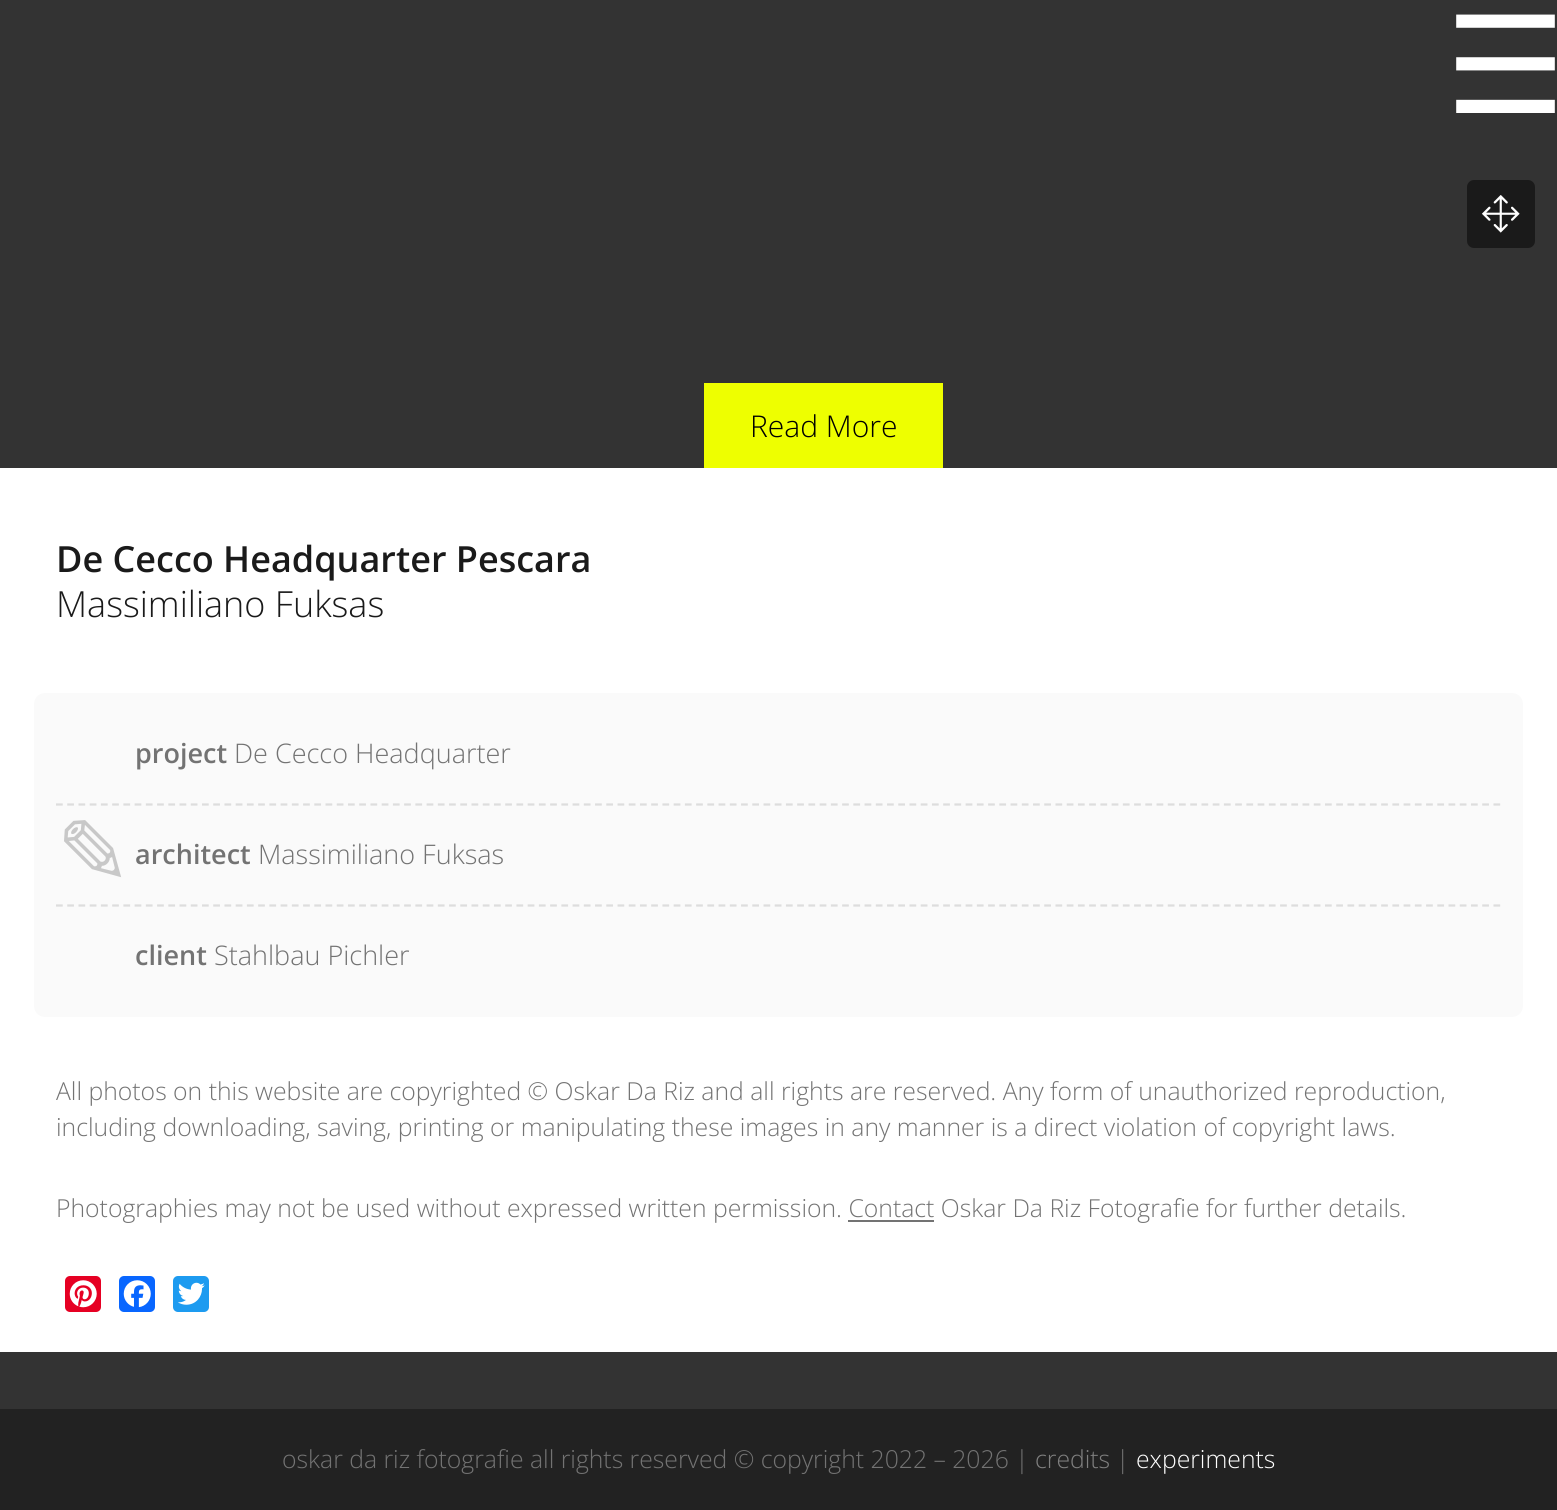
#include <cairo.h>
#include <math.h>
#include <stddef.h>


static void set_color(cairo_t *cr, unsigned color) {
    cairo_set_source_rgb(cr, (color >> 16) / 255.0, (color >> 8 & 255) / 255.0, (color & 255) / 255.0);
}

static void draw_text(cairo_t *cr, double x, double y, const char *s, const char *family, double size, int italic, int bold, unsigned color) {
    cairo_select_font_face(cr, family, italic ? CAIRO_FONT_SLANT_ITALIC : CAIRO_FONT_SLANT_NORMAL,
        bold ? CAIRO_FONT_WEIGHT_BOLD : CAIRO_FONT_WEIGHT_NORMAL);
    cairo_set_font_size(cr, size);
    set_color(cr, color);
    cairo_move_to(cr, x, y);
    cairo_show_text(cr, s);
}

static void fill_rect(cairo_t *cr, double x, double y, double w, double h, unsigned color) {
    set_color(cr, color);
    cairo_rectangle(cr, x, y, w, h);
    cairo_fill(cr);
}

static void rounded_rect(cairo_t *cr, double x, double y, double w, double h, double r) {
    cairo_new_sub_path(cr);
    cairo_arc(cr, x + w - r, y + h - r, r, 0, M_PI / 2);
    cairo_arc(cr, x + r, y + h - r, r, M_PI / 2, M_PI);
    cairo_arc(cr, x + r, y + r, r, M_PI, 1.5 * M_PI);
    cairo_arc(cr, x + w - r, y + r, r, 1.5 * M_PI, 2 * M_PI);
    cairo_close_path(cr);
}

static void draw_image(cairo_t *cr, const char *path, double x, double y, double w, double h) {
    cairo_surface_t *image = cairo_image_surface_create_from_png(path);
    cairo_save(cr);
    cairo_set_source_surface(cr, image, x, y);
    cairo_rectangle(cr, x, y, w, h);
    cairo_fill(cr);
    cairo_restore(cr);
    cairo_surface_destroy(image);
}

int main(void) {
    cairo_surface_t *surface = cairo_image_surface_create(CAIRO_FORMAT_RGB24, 1557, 1510);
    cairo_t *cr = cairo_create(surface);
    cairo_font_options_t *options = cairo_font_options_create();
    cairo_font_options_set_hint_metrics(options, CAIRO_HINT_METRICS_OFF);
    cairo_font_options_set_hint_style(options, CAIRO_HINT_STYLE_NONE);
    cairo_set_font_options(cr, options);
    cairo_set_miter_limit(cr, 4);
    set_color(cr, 0x333333);
    cairo_paint(cr);
    draw_text(cr, 1445, 113, "☰", "DejaVu Sans", 135, 0, 0, 0xFFFFFF);
    set_color(cr, 0x1A1A1A);
    rounded_rect(cr, 1467, 180, 68, 68, 7);
    cairo_fill(cr);
    draw_image(cr, "assets/img1.png", 1481, 195, 39, 38);
    fill_rect(cr, 704, 383, 239, 85, 0xEEFF00);
    draw_text(cr, 750, 437, "Read More", "Open Sans Light", 30, 0, 0, 0x000000);
    fill_rect(cr, 0, 468, 1557, 884, 0xFFFFFF);
    draw_text(cr, 56, 572, "De Cecco Headquarter Pescara", "Open Sans SemiBold", 36, 0, 0, 0x1A1A1A);
    draw_text(cr, 56, 617, "Massimiliano Fuksas", "Open Sans Light", 36, 0, 0, 0x1A1A1A);
    set_color(cr, 0xFAFAFA);
    rounded_rect(cr, 34, 693, 1489, 324, 11);
    cairo_fill(cr);
    cairo_new_path(cr);
    cairo_move_to(cr, 56, 804.5);
    cairo_line_to(cr, 1501, 804.5);
    set_color(cr, 0xDDDDDD);
    cairo_set_line_width(cr, 2.2);
    cairo_set_dash(cr, (double[]){6.75, 4.48}, 2, 0);
    cairo_stroke(cr);
    draw_text(cr, 135, 763, "project", "Open Sans SemiBold", 27, 0, 0, 0x737373);
    draw_text(cr, 234, 763, "De Cecco Headquarter", "Open Sans Light", 27, 0, 0, 0x737373);
    cairo_new_path(cr);
    cairo_move_to(cr, 56, 905.5);
    cairo_line_to(cr, 1501, 905.5);
    set_color(cr, 0xDDDDDD);
    cairo_stroke(cr);
    draw_text(cr, 56, 884, "✎", "DejaVu Sans", 90, 0, 0, 0xC8C8C8);
    draw_text(cr, 135, 864, "architect", "Open Sans SemiBold", 27, 0, 0, 0x737373);
    draw_text(cr, 258, 864, "Massimiliano Fuksas", "Open Sans Light", 27, 0, 0, 0x737373);
    draw_text(cr, 135, 965, "client", "Open Sans SemiBold", 27, 0, 0, 0x737373);
    draw_text(cr, 214, 965, "Stahlbau Pichler", "Open Sans Light", 27, 0, 0, 0x737373);
    draw_text(cr, 56, 1100, "All photos on this website are copyrighted © Oskar Da Riz and all rights are reserved. Any form of unauthorized reproduction,", "Open Sans Light", 24.75, 0, 0, 0x737373);
    draw_text(cr, 56, 1136, "including downloading, saving, printing or manipulating these images in any manner is a direct violation of copyright laws.", "Open Sans Light", 24.75, 0, 0, 0x737373);
    draw_text(cr, 56, 1217, "Photographies may not be used without expressed written permission. Contact Oskar Da Riz Fotografie for further details.", "Open Sans Light", 24.75, 0, 0, 0x737373);
    fill_rect(cr, 848, 1220, 86, 2, 0x737373);
    set_color(cr, 0xE60023);
    rounded_rect(cr, 65, 1276, 36, 36, 5);
    cairo_fill(cr);
    draw_image(cr, "assets/img2.png", 69, 1280, 28, 28);
    set_color(cr, 0x0866FF);
    rounded_rect(cr, 119, 1276, 36, 36, 5);
    cairo_fill(cr);
    draw_image(cr, "assets/img3.png", 123, 1280, 28, 28);
    set_color(cr, 0x1D9BF0);
    rounded_rect(cr, 173, 1276, 36, 36, 5);
    cairo_fill(cr);
    draw_image(cr, "assets/img4.png", 178, 1282, 27, 23);
    fill_rect(cr, 0, 1409, 1557, 101, 0x222222);
    draw_text(cr, 282, 1468, "oskar da riz fotografie all rights reserved © copyright 2022 – 2026 |", "Open Sans Light", 24.75, 0, 0, 0x737373);
    draw_text(cr, 1035, 1468, "credits", "Open Sans Light", 24.75, 0, 0, 0x808080);
    draw_text(cr, 1116, 1468, "|", "Open Sans Light", 24.75, 0, 0, 0x737373);
    draw_text(cr, 1136, 1468, "experiments", "Open Sans Light", 24.75, 0, 0, 0xFFFFFF);
    cairo_surface_write_to_png(surface, "output.png");
    cairo_font_options_destroy(options);
    cairo_destroy(cr);
    cairo_surface_destroy(surface);
    return 0;
}
